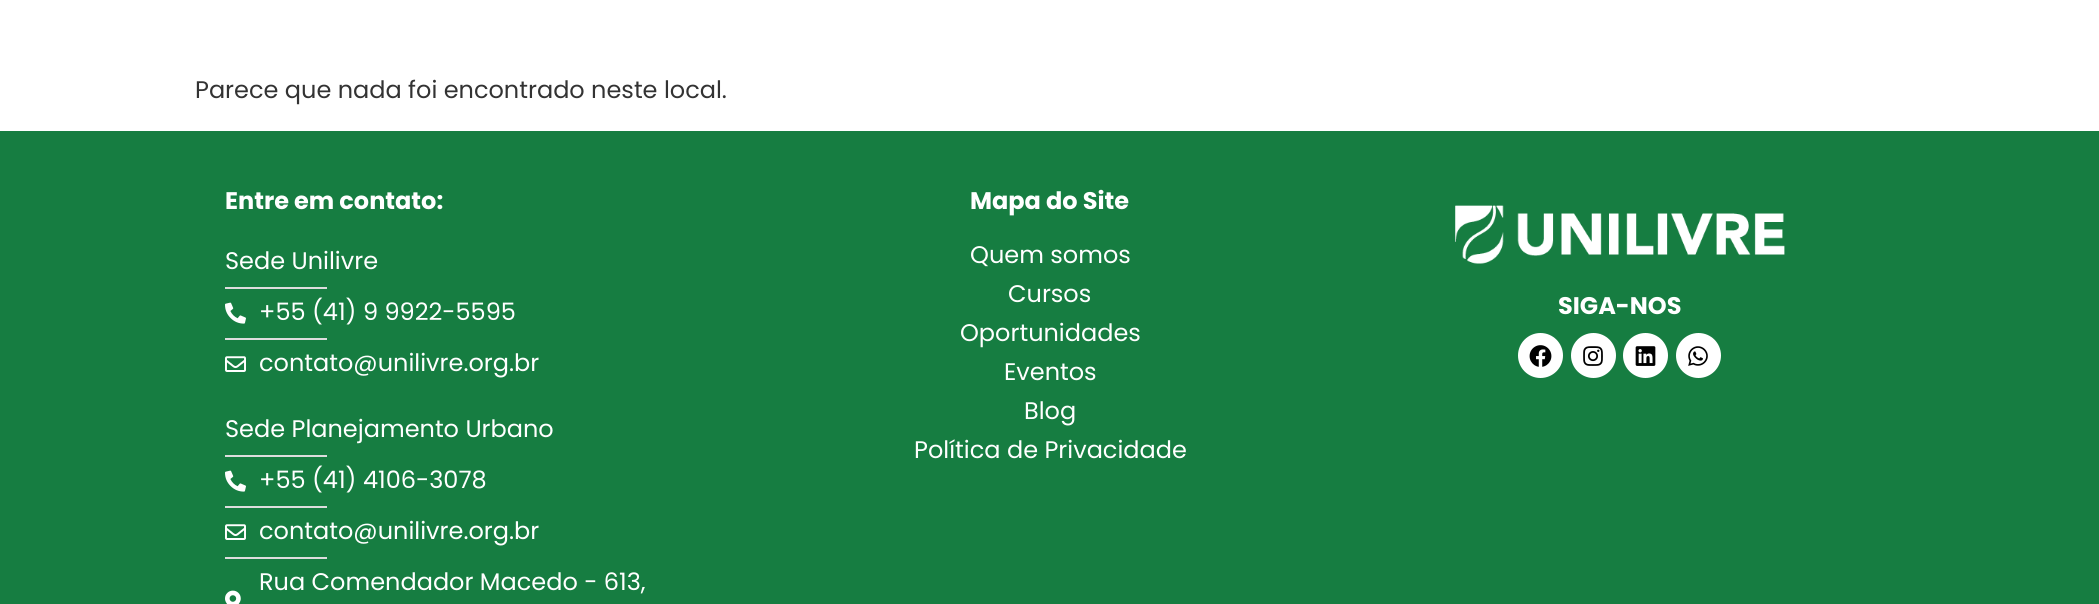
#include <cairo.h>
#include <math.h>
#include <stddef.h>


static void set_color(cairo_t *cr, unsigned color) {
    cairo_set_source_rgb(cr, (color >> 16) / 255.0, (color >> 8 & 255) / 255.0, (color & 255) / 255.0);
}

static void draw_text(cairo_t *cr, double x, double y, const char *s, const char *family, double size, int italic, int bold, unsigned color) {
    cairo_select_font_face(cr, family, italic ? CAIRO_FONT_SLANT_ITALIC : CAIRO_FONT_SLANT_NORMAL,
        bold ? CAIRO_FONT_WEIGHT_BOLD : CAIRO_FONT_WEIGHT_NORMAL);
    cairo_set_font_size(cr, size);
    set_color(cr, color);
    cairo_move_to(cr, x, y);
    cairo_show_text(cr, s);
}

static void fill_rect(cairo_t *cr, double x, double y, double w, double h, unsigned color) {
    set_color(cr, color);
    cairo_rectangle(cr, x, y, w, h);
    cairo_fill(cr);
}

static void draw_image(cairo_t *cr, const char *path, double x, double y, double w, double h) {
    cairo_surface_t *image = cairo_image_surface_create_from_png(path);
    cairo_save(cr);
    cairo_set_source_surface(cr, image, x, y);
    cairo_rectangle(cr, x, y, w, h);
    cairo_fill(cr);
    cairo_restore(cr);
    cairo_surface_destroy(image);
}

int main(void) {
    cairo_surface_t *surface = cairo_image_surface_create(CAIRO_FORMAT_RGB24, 2099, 604);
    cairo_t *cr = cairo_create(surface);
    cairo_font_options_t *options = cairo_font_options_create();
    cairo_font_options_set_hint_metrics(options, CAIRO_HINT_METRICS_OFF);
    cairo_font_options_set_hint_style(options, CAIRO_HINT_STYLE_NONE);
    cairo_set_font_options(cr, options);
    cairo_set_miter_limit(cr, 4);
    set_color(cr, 0xFFFFFF);
    cairo_paint(cr);
    draw_text(cr, 195, 98, "Parece que nada foi encontrado neste local.", "Poppins", 24, 0, 0, 0x333333);
    fill_rect(cr, 0, 131, 2099, 473, 0x167D41);
    draw_text(cr, 225, 209, "Entre em contato:", "Poppins", 24, 0, 1, 0xFFFFFF);
    draw_text(cr, 225, 269, "Sede Unilivre", "Poppins", 24, 0, 0, 0xFFFFFF);
    fill_rect(cr, 225, 287, 102, 2, 0xDDDDDD);
    draw_image(cr, "assets/img1.png", 225, 302, 21, 22);
    draw_text(cr, 259, 320, "+55 (41) 9 9922-5595", "Poppins", 24, 0, 0, 0xFFFFFF);
    fill_rect(cr, 225, 338, 102, 2, 0xDDDDDD);
    draw_image(cr, "assets/img2.png", 225, 356, 21, 16);
    draw_text(cr, 259, 371, "contato@unilivre.org.br", "Poppins", 24, 0, 0, 0xFFFFFF);
    draw_text(cr, 225, 437, "Sede Planejamento Urbano", "Poppins", 24, 0, 0, 0xFFFFFF);
    fill_rect(cr, 225, 455, 102, 2, 0xDDDDDD);
    draw_image(cr, "assets/img1.png", 225, 470, 21, 22);
    draw_text(cr, 259, 488, "+55 (41) 4106-3078", "Poppins", 24, 0, 0, 0xFFFFFF);
    fill_rect(cr, 225, 506, 102, 2, 0xDDDDDD);
    draw_image(cr, "assets/img2.png", 225, 524, 21, 16);
    draw_text(cr, 259, 539, "contato@unilivre.org.br", "Poppins", 24, 0, 0, 0xFFFFFF);
    fill_rect(cr, 225, 557, 102, 2, 0xDDDDDD);
    draw_text(cr, 259, 590, "Rua Comendador Macedo - 613,", "Poppins", 24, 0, 0, 0xFFFFFF);
    draw_image(cr, "assets/img3.png", 225, 590, 16, 14);
    draw_text(cr, 970, 209, "Mapa do Site", "Poppins", 24, 0, 1, 0xFFFFFF);
    draw_text(cr, 970, 263, "Quem somos", "Poppins", 24, 0, 0, 0xFFFFFF);
    draw_text(cr, 1008, 302, "Cursos", "Poppins", 24, 0, 0, 0xFFFFFF);
    draw_text(cr, 960, 341, "Oportunidades", "Poppins", 24, 0, 0, 0xFFFFFF);
    draw_text(cr, 1004, 380, "Eventos", "Poppins", 24, 0, 0, 0xFFFFFF);
    draw_text(cr, 1024, 419, "Blog", "Poppins", 24, 0, 0, 0xFFFFFF);
    draw_text(cr, 914, 458, "Política de Privacidade", "Poppins", 24, 0, 0, 0xFFFFFF);
    draw_image(cr, "assets/img4.png", 1455, 205, 330, 59);
    draw_text(cr, 1558, 314, "SIGA-NOS", "Poppins", 24, 0, 1, 0xFFFFFF);
    cairo_new_path(cr);
    cairo_arc(cr, 1540.5, 355.5, 22.5, 0, 2 * M_PI);
    cairo_fill(cr);
    draw_image(cr, "assets/img5.png", 1529, 345, 23, 22);
    cairo_arc(cr, 1593.5, 355.5, 22.5, 0, 2 * M_PI);
    cairo_fill(cr);
    draw_image(cr, "assets/img6.png", 1583, 346, 20, 20);
    cairo_arc(cr, 1645.5, 355.5, 22.5, 0, 2 * M_PI);
    cairo_fill(cr);
    draw_image(cr, "assets/img7.png", 1635, 346, 21, 20);
    cairo_arc(cr, 1698.5, 355.5, 22.5, 0, 2 * M_PI);
    cairo_fill(cr);
    draw_image(cr, "assets/img8.png", 1688, 346, 20, 20);
    cairo_surface_write_to_png(surface, "output.png");
    cairo_font_options_destroy(options);
    cairo_destroy(cr);
    cairo_surface_destroy(surface);
    return 0;
}
